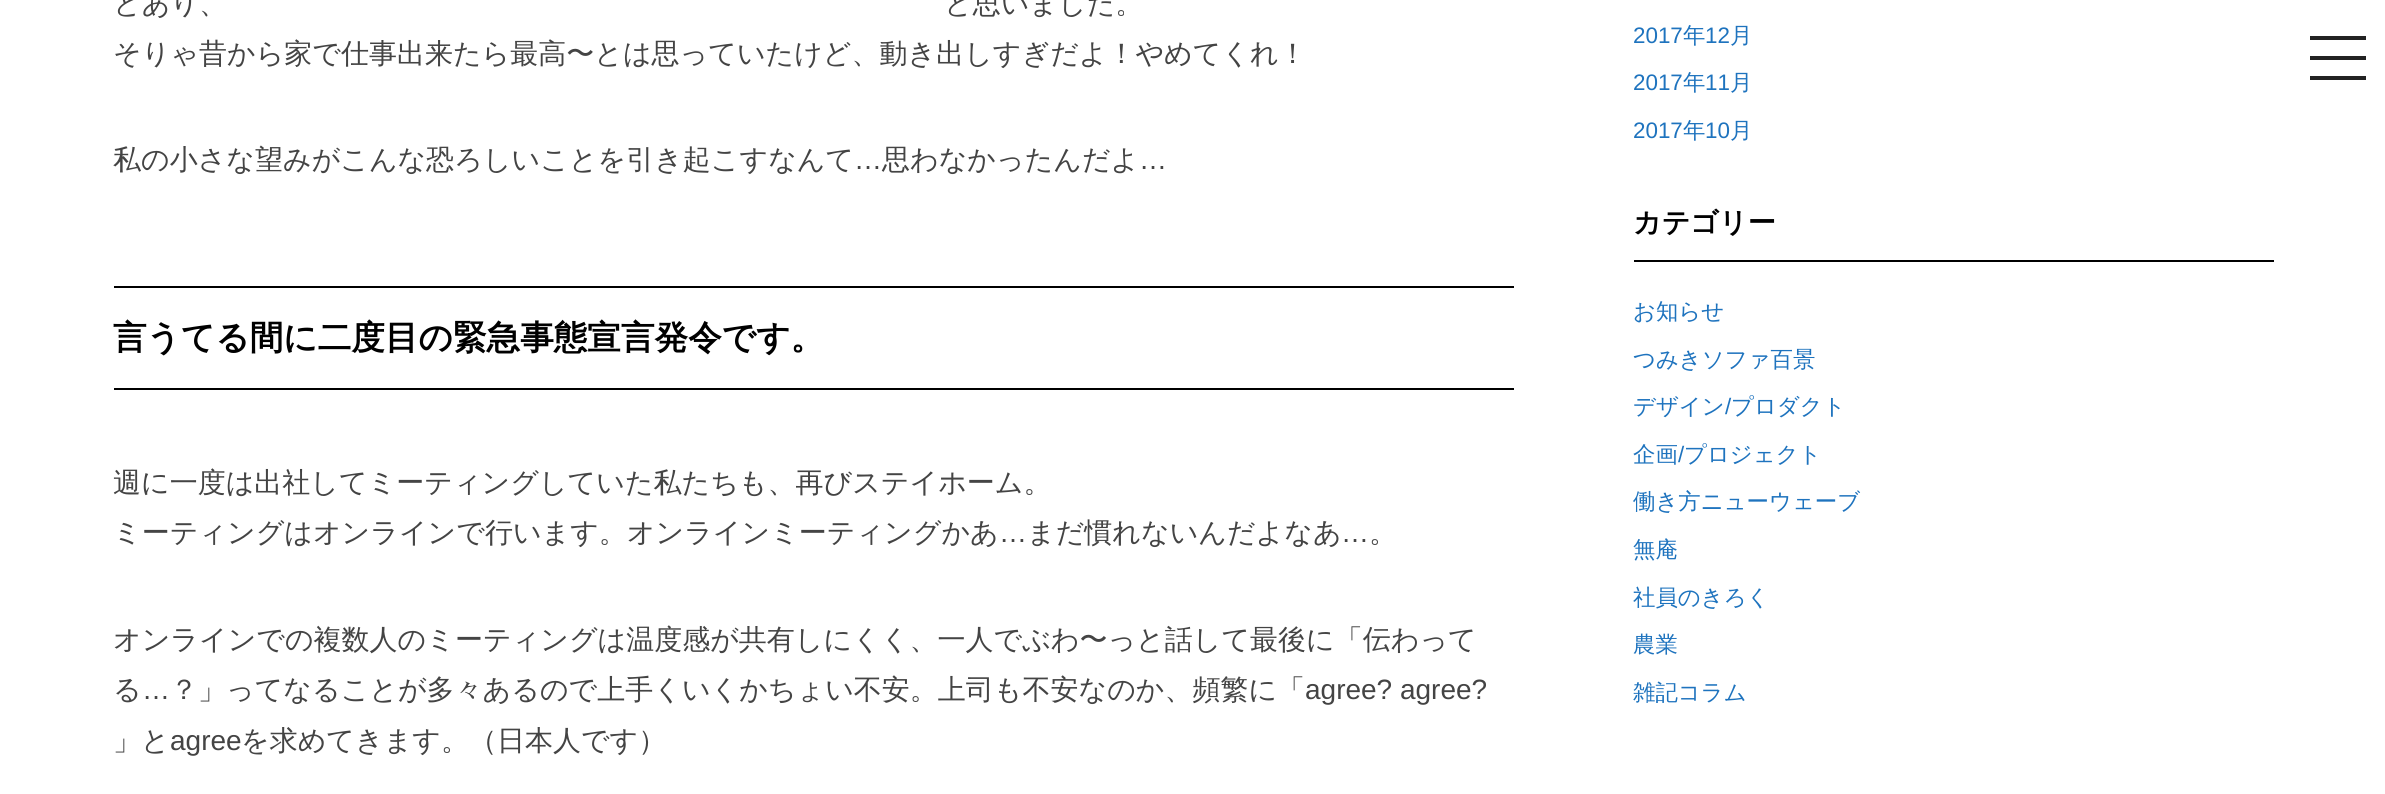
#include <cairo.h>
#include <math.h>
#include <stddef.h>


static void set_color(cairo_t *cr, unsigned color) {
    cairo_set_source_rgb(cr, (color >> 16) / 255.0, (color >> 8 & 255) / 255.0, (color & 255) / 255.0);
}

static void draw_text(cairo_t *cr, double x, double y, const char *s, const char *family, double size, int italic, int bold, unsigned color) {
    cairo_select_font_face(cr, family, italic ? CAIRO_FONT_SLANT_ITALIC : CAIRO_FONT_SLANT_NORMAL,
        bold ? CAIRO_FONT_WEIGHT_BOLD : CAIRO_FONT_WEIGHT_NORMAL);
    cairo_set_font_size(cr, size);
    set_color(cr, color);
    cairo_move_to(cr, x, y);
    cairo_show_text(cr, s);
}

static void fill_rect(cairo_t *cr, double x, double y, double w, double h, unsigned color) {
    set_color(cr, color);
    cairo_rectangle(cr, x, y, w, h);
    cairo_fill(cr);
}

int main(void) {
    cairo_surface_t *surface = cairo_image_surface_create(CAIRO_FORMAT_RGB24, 2385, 794);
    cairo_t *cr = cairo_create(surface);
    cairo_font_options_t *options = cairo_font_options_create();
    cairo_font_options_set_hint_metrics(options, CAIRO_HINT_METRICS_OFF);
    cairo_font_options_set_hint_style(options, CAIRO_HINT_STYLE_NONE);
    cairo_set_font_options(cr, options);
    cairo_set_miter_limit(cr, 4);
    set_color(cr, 0xFFFFFF);
    cairo_paint(cr);
    draw_text(cr, 113, 13, "とあり、", "WenQuanYi Zen Hei Medium", 28, 0, 0, 0x444444);
    draw_text(cr, 944, 13, "と思いました。", "WenQuanYi Zen Hei Medium", 28, 0, 0, 0x444444);
    draw_text(cr, 113, 63, "そりゃ昔から家で仕事出来たら最高〜とは思っていたけど、動き出しすぎだよ！やめてくれ！", "WenQuanYi Zen Hei Medium", 28, 0, 0, 0x444444);
    draw_text(cr, 113, 169, "私の小さな望みがこんな恐ろしいことを引き起こすなんて", "WenQuanYi Zen Hei Medium", 28, 0, 0, 0x444444);
    draw_text(cr, 854, 169, "…", "Liberation Sans", 28, 0, 0, 0x444444);
    draw_text(cr, 882, 169, "思わなかったんだよ", "WenQuanYi Zen Hei Medium", 28, 0, 0, 0x444444);
    draw_text(cr, 1139, 169, "…", "Liberation Sans", 28, 0, 0, 0x444444);
    fill_rect(cr, 114, 286, 1400, 2, 0x000000);
    fill_rect(cr, 114, 388, 1400, 2, 0x000000);
    draw_text(cr, 113, 349, "言うてる間に二度目の緊急事態宣言発令です。", "WenQuanYi Zen Hei", 33.6, 0, 1, 0x000000);
    draw_text(cr, 113, 492, "週に一度は出社してミーティングしていた私たちも、再びステイホーム。", "WenQuanYi Zen Hei Medium", 28, 0, 0, 0x444444);
    draw_text(cr, 113, 542, "ミーティングはオンラインで行います。オンラインミーティングかあ", "WenQuanYi Zen Hei Medium", 28, 0, 0, 0x444444);
    draw_text(cr, 999, 542, "…", "Liberation Sans", 28, 0, 0, 0x444444);
    draw_text(cr, 1027, 542, "まだ慣れないんだよなあ", "WenQuanYi Zen Hei Medium", 28, 0, 0, 0x444444);
    draw_text(cr, 1341, 542, "…", "Liberation Sans", 28, 0, 0, 0x444444);
    draw_text(cr, 1369, 542, "。", "WenQuanYi Zen Hei Medium", 28, 0, 0, 0x444444);
    draw_text(cr, 113, 649, "オンラインでの複数人のミーティングは温度感が共有しにくく、一人でぶわ〜っと話して最後に「伝わって", "WenQuanYi Zen Hei Medium", 28, 0, 0, 0x444444);
    draw_text(cr, 113, 699, "る", "WenQuanYi Zen Hei Medium", 28, 0, 0, 0x444444);
    draw_text(cr, 142, 699, "…", "Liberation Sans", 28, 0, 0, 0x444444);
    draw_text(cr, 170, 699, "？」ってなることが多々あるので上手くいくかちょい不安。上司も不安なのか、頻繁に「", "WenQuanYi Zen Hei Medium", 28, 0, 0, 0x444444);
    draw_text(cr, 1305, 699, "agree? agree?", "Liberation Sans", 28, 0, 0, 0x444444);
    draw_text(cr, 113, 750, "」と", "WenQuanYi Zen Hei Medium", 28, 0, 0, 0x444444);
    draw_text(cr, 170, 750, "agree", "Liberation Sans", 28, 0, 0, 0x444444);
    draw_text(cr, 241, 750, "を求めてきます。（日本人です）", "WenQuanYi Zen Hei Medium", 28, 0, 0, 0x444444);
    draw_text(cr, 1633, 43, "2017", "Liberation Sans", 22.4, 0, 0, 0x1E73BE);
    draw_text(cr, 1683, 43, "年", "WenQuanYi Zen Hei Medium", 22.4, 0, 0, 0x1E73BE);
    draw_text(cr, 1705, 43, "12", "Liberation Sans", 22.4, 0, 0, 0x1E73BE);
    draw_text(cr, 1730, 43, "月", "WenQuanYi Zen Hei Medium", 22.4, 0, 0, 0x1E73BE);
    draw_text(cr, 1633, 90, "2017", "Liberation Sans", 22.4, 0, 0, 0x1E73BE);
    draw_text(cr, 1683, 90, "年", "WenQuanYi Zen Hei Medium", 22.4, 0, 0, 0x1E73BE);
    draw_text(cr, 1705, 90, "11", "Liberation Sans", 22.4, 0, 0, 0x1E73BE);
    draw_text(cr, 1730, 90, "月", "WenQuanYi Zen Hei Medium", 22.4, 0, 0, 0x1E73BE);
    draw_text(cr, 1633, 138, "2017", "Liberation Sans", 22.4, 0, 0, 0x1E73BE);
    draw_text(cr, 1683, 138, "年", "WenQuanYi Zen Hei Medium", 22.4, 0, 0, 0x1E73BE);
    draw_text(cr, 1705, 138, "10", "Liberation Sans", 22.4, 0, 0, 0x1E73BE);
    draw_text(cr, 1730, 138, "月", "WenQuanYi Zen Hei Medium", 22.4, 0, 0, 0x1E73BE);
    fill_rect(cr, 1634, 260, 640, 2, 0x000000);
    draw_text(cr, 1633, 232, "カテゴリー", "WenQuanYi Zen Hei", 28, 0, 1, 0x000000);
    draw_text(cr, 1633, 319, "お知らせ", "WenQuanYi Zen Hei Medium", 22.4, 0, 0, 0x1E73BE);
    draw_text(cr, 1633, 367, "つみきソファ百景", "WenQuanYi Zen Hei Medium", 22.4, 0, 0, 0x1E73BE);
    draw_text(cr, 1633, 414, "デザイン", "WenQuanYi Zen Hei Medium", 22.4, 0, 0, 0x1E73BE);
    draw_text(cr, 1725, 414, "/", "Liberation Sans", 22.4, 0, 0, 0x1E73BE);
    draw_text(cr, 1731, 414, "プロダクト", "WenQuanYi Zen Hei Medium", 22.4, 0, 0, 0x1E73BE);
    draw_text(cr, 1633, 462, "企画", "WenQuanYi Zen Hei Medium", 22.4, 0, 0, 0x1E73BE);
    draw_text(cr, 1678, 462, "/", "Liberation Sans", 22.4, 0, 0, 0x1E73BE);
    draw_text(cr, 1684, 462, "プロジェクト", "WenQuanYi Zen Hei Medium", 22.4, 0, 0, 0x1E73BE);
    draw_text(cr, 1633, 509, "働き方ニューウェーブ", "WenQuanYi Zen Hei Medium", 22.4, 0, 0, 0x1E73BE);
    draw_text(cr, 1633, 557, "無庵", "WenQuanYi Zen Hei Medium", 22.4, 0, 0, 0x1E73BE);
    draw_text(cr, 1633, 605, "社員のきろく", "WenQuanYi Zen Hei Medium", 22.4, 0, 0, 0x1E73BE);
    draw_text(cr, 1633, 652, "農業", "WenQuanYi Zen Hei Medium", 22.4, 0, 0, 0x1E73BE);
    draw_text(cr, 1633, 700, "雑記コラム", "WenQuanYi Zen Hei Medium", 22.4, 0, 0, 0x1E73BE);
    fill_rect(cr, 2310, 56, 56, 4, 0x222222);
    fill_rect(cr, 2310, 36, 56, 4, 0x222222);
    fill_rect(cr, 2310, 76, 56, 4, 0x222222);
    cairo_surface_write_to_png(surface, "output.png");
    cairo_font_options_destroy(options);
    cairo_destroy(cr);
    cairo_surface_destroy(surface);
    return 0;
}
